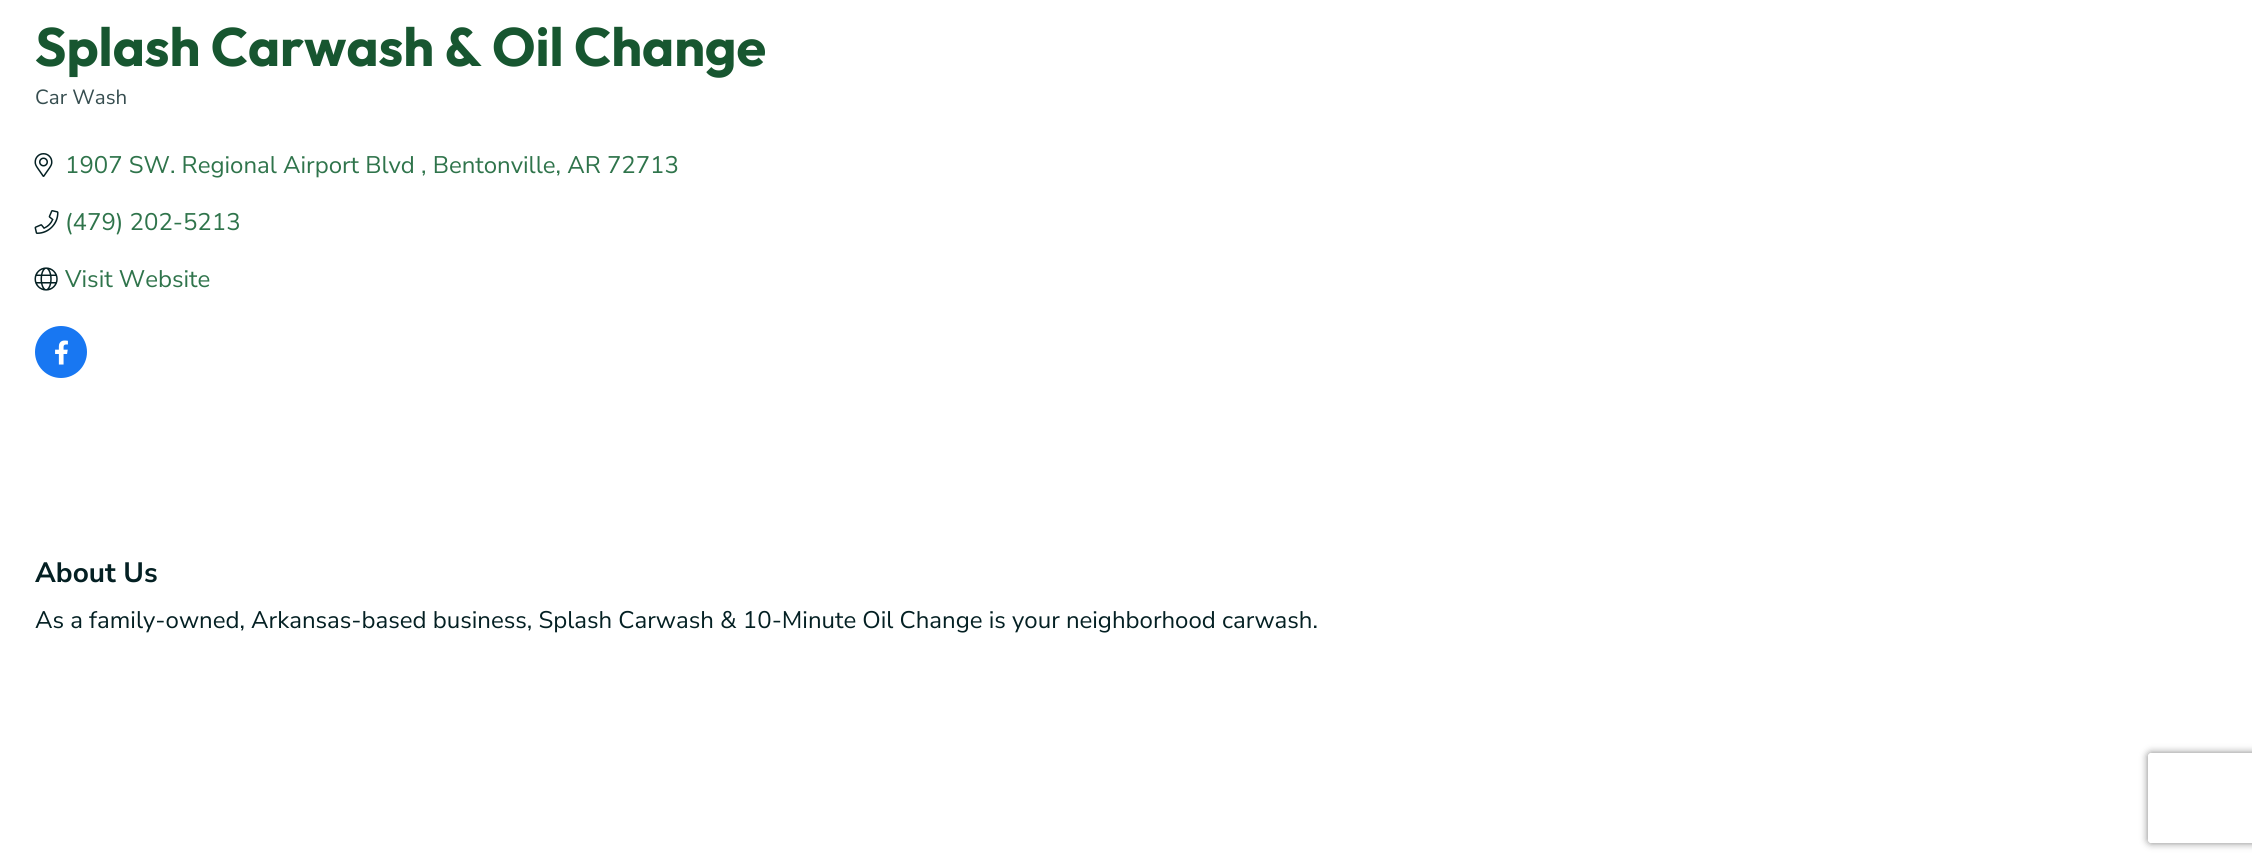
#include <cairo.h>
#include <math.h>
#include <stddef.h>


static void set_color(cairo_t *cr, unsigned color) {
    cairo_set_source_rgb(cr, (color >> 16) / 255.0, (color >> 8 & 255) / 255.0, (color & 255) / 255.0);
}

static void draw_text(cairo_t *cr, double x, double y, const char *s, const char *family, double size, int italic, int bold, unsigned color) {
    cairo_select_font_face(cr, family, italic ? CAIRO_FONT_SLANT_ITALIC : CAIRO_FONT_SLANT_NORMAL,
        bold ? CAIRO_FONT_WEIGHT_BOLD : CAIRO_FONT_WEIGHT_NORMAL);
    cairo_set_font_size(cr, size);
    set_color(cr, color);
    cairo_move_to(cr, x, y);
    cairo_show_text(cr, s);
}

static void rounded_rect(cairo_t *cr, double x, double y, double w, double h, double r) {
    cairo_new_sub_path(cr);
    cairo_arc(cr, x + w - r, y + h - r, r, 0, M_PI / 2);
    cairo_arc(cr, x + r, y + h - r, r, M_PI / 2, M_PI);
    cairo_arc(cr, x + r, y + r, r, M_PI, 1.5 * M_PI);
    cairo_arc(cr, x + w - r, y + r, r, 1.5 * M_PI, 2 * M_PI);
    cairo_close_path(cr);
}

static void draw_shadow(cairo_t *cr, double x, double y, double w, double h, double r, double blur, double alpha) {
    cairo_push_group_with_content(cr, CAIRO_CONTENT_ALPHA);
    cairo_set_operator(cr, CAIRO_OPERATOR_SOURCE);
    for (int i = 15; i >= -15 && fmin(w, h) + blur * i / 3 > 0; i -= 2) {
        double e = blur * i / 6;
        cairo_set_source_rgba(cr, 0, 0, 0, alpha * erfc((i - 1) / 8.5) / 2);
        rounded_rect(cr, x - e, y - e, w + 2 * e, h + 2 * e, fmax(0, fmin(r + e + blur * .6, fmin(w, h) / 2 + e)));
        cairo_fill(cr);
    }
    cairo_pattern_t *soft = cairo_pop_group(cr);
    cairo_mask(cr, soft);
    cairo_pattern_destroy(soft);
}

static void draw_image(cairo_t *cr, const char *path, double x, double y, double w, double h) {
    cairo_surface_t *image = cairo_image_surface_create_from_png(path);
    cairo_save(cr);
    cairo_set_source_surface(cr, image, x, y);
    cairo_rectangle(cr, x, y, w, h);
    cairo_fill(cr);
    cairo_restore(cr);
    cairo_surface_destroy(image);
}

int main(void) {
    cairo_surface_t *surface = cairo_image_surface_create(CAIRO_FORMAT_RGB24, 2252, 864);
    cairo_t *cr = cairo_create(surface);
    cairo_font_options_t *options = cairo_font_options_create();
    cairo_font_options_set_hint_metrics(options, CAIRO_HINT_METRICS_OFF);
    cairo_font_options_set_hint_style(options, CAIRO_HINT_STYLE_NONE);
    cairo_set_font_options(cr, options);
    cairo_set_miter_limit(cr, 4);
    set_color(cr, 0xFFFFFF);
    cairo_paint(cr);
    draw_text(cr, 35, 66, "Splash Carwash & Oil Change", "Outfit", 54, 0, 1, 0x175630);
    draw_text(cr, 35, 104, "Car Wash", "Nunito Sans", 20.5, 0, 0, 0x364D4F);
    draw_image(cr, "assets/img1.png", 34, 153, 19, 24);
    draw_text(cr, 65, 173, "1907 SW. Regional Airport Blvd , Bentonville, AR 72713", "Nunito Sans", 24, 0, 0, 0x2F744B);
    draw_image(cr, "assets/img2.png", 34, 210, 25, 24);
    draw_text(cr, 65, 230, "(479) 202-5213", "Nunito Sans", 24, 0, 0, 0x2F744B);
    draw_image(cr, "assets/img3.png", 34, 267, 24, 24);
    draw_text(cr, 65, 287, "Visit Website", "Nunito Sans", 24, 0, 0, 0x2F744B);
    set_color(cr, 0x1877F2);
    cairo_new_path(cr);
    cairo_arc(cr, 61, 352, 26, 0, 2 * M_PI);
    cairo_fill(cr);
    draw_image(cr, "assets/img4.png", 55, 340, 13, 25);
    draw_text(cr, 35, 582, "About Us", "Nunito Sans", 28, 0, 1, 0x042023);
    draw_text(cr, 35, 628, "As a family-owned, Arkansas-based business, Splash Carwash & 10-Minute Oil Change is your neighborhood carwash.", "Nunito Sans", 24, 0, 0, 0x042023);
    cairo_save(cr);
    cairo_set_fill_rule(cr, CAIRO_FILL_RULE_EVEN_ODD);
    cairo_new_path(cr);
    cairo_move_to(cr, 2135, 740);
    cairo_line_to(cr, 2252, 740);
    cairo_line_to(cr, 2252, 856);
    cairo_line_to(cr, 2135, 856);
    cairo_close_path(cr);
    cairo_move_to(cr, 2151, 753);
    cairo_line_to(cr, 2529, 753);
    cairo_curve_to(cr, 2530.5, 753, 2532, 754.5, 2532, 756);
    cairo_line_to(cr, 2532, 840);
    cairo_curve_to(cr, 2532, 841.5, 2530.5, 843, 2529, 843);
    cairo_line_to(cr, 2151, 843);
    cairo_curve_to(cr, 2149.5, 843, 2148, 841.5, 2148, 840);
    cairo_line_to(cr, 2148, 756);
    cairo_curve_to(cr, 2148, 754.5, 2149.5, 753, 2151, 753);
    cairo_close_path(cr);
    cairo_clip(cr);
    set_color(cr, 0x808080);
    draw_shadow(cr, 2148, 753, 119, 90, 3, 4, 1);
    cairo_restore(cr);
    cairo_surface_write_to_png(surface, "output.png");
    cairo_font_options_destroy(options);
    cairo_destroy(cr);
    cairo_surface_destroy(surface);
    return 0;
}
